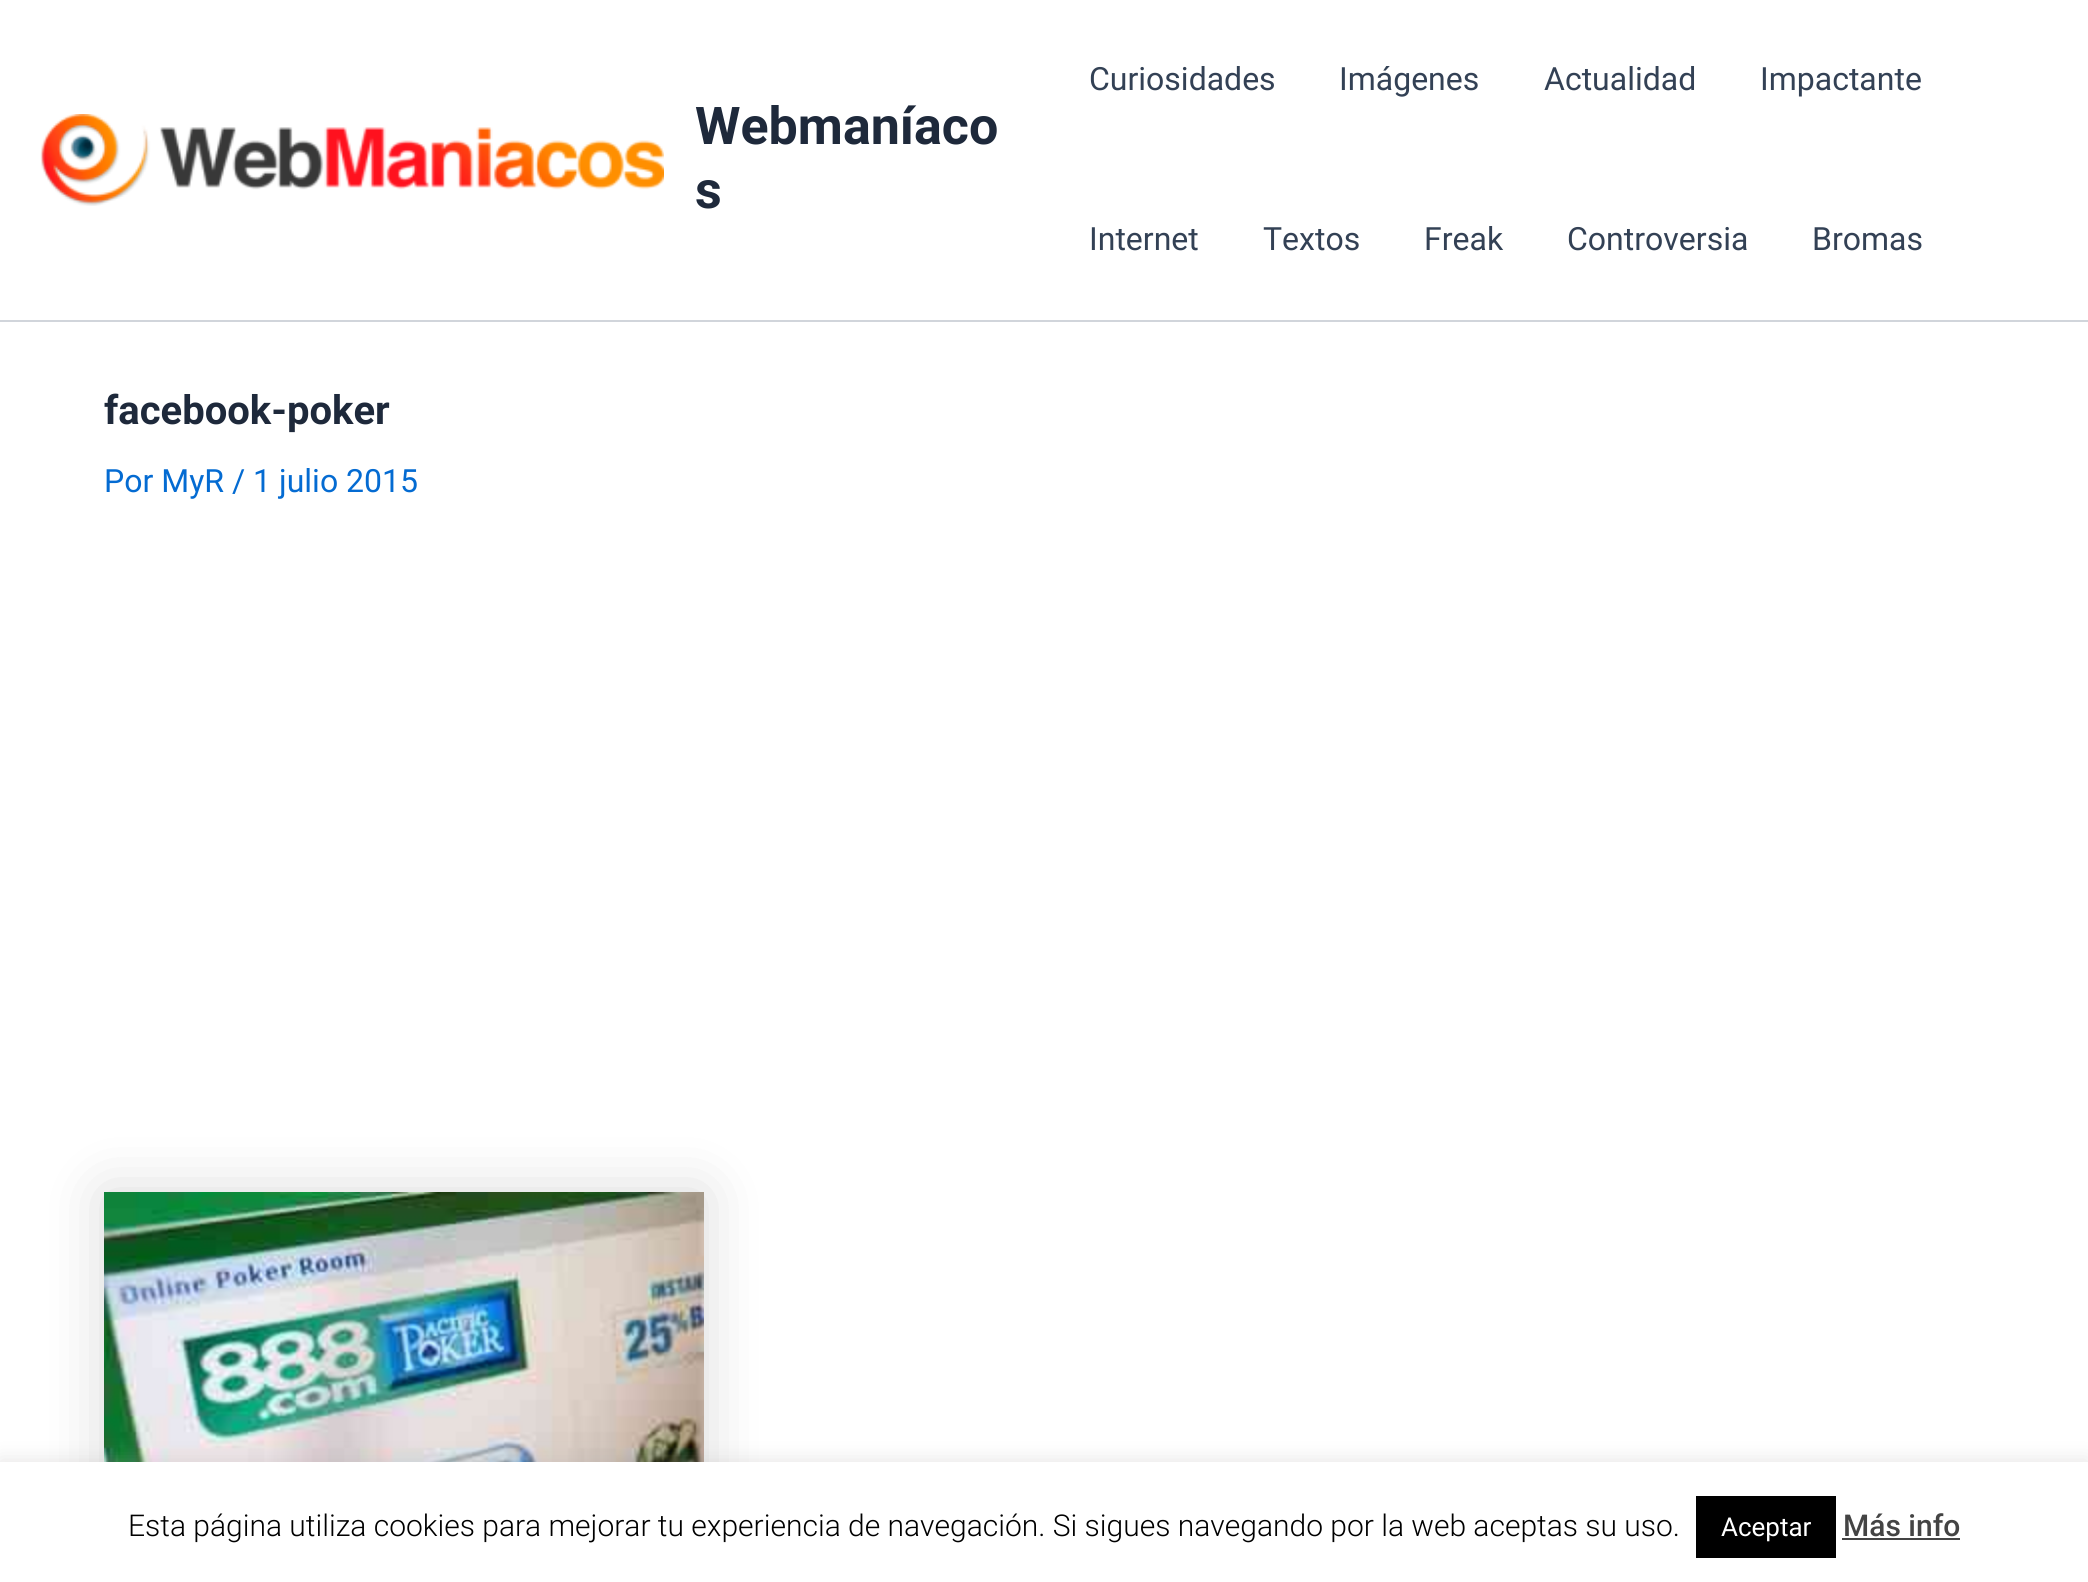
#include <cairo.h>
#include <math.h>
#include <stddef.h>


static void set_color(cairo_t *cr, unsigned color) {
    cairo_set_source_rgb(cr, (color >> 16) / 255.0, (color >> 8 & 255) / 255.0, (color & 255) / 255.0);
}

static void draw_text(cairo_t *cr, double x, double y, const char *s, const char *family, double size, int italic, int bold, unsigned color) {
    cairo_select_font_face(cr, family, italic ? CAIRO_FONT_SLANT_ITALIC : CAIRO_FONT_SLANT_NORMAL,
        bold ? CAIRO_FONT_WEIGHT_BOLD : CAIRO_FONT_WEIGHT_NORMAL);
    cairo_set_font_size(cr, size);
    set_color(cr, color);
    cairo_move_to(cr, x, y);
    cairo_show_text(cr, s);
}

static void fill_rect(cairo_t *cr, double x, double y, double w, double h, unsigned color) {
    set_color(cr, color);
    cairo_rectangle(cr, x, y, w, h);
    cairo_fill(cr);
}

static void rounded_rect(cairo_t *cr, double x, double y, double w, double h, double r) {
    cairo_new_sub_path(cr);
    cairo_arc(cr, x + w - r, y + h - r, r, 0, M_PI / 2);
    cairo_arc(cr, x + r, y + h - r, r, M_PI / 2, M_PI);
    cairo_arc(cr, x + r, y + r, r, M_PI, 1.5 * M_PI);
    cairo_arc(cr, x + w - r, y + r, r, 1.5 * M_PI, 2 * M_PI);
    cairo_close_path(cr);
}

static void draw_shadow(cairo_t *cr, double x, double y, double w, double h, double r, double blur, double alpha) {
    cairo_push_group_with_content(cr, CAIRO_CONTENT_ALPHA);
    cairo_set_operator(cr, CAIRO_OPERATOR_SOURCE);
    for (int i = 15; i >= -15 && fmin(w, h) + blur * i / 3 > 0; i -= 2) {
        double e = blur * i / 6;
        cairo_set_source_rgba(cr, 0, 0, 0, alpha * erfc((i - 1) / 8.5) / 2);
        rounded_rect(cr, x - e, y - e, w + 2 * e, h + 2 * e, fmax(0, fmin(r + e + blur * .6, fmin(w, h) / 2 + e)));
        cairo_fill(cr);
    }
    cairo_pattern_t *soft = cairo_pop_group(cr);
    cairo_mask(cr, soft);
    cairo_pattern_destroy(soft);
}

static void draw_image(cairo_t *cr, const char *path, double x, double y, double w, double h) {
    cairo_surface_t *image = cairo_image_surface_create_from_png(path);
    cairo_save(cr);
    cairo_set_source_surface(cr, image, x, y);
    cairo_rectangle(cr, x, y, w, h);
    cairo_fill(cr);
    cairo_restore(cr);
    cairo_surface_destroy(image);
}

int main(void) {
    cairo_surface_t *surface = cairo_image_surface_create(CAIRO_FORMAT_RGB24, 2088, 1582);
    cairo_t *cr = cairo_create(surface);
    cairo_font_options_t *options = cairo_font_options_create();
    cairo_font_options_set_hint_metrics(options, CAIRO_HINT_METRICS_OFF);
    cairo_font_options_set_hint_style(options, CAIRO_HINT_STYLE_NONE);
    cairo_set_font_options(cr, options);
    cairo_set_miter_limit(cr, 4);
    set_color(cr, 0xFFFFFF);
    cairo_paint(cr);
    fill_rect(cr, 0, 320, 2088, 2, 0xD1D5DB);
    draw_image(cr, "assets/img1.png", 40, 114, 624, 92);
    draw_text(cr, 695, 144, "Webmaníaco", "Roboto", 52, 0, 1, 0x1E293B);
    draw_text(cr, 695, 208, "s", "Roboto", 52, 0, 1, 0x1E293B);
    draw_text(cr, 1089, 90, "Curiosidades", "Roboto", 32, 0, 0, 0x334155);
    draw_text(cr, 1339, 90, "Imágenes", "Roboto", 32, 0, 0, 0x334155);
    draw_text(cr, 1544, 90, "Actualidad", "Roboto", 32, 0, 0, 0x334155);
    draw_text(cr, 1760, 90, "Impactante", "Roboto", 32, 0, 0, 0x334155);
    draw_text(cr, 1089, 250, "Internet", "Roboto", 32, 0, 0, 0x334155);
    draw_text(cr, 1263, 250, "Textos", "Roboto", 32, 0, 0, 0x334155);
    draw_text(cr, 1424, 250, "Freak", "Roboto", 32, 0, 0, 0x334155);
    draw_text(cr, 1567, 250, "Controversia", "Roboto", 32, 0, 0, 0x334155);
    draw_text(cr, 1812, 250, "Bromas", "Roboto", 32, 0, 0, 0x334155);
    draw_text(cr, 104, 424, "facebook-poker", "Roboto", 40, 0, 1, 0x1E293B);
    draw_text(cr, 104, 492, "Por MyR / 1 julio 2015", "Roboto", 32, 0, 0, 0x046BD2);
    set_color(cr, 0x000000);
    draw_shadow(cr, 104, 1192, 600, 374, 0, 30, 0.15);
    draw_image(cr, "assets/img2.png", 104, 1192, 600, 270);
    set_color(cr, 0xACABAB);
    draw_shadow(cr, 0, 1460, 2088, 120, 0, 10, 0.3);
    fill_rect(cr, 0, 1462, 2088, 120, 0xFFFFFF);
    draw_text(cr, 128, 1536, "Esta página utiliza cookies para mejorar tu experiencia de navegación. Si sigues navegando por la web aceptas su uso.", "Roboto Light", 30, 0, 0, 0x000000);
    fill_rect(cr, 1696, 1496, 140, 62, 0x000000);
    draw_text(cr, 1721, 1536, "Aceptar", "Roboto", 26, 0, 0, 0xFFFFFF);
    draw_text(cr, 1843, 1536, "Más info", "Roboto Medium", 30, 0, 0, 0x444444);
    fill_rect(cr, 1842, 1538, 118, 2, 0x444444);
    cairo_surface_write_to_png(surface, "output.png");
    cairo_font_options_destroy(options);
    cairo_destroy(cr);
    cairo_surface_destroy(surface);
    return 0;
}
